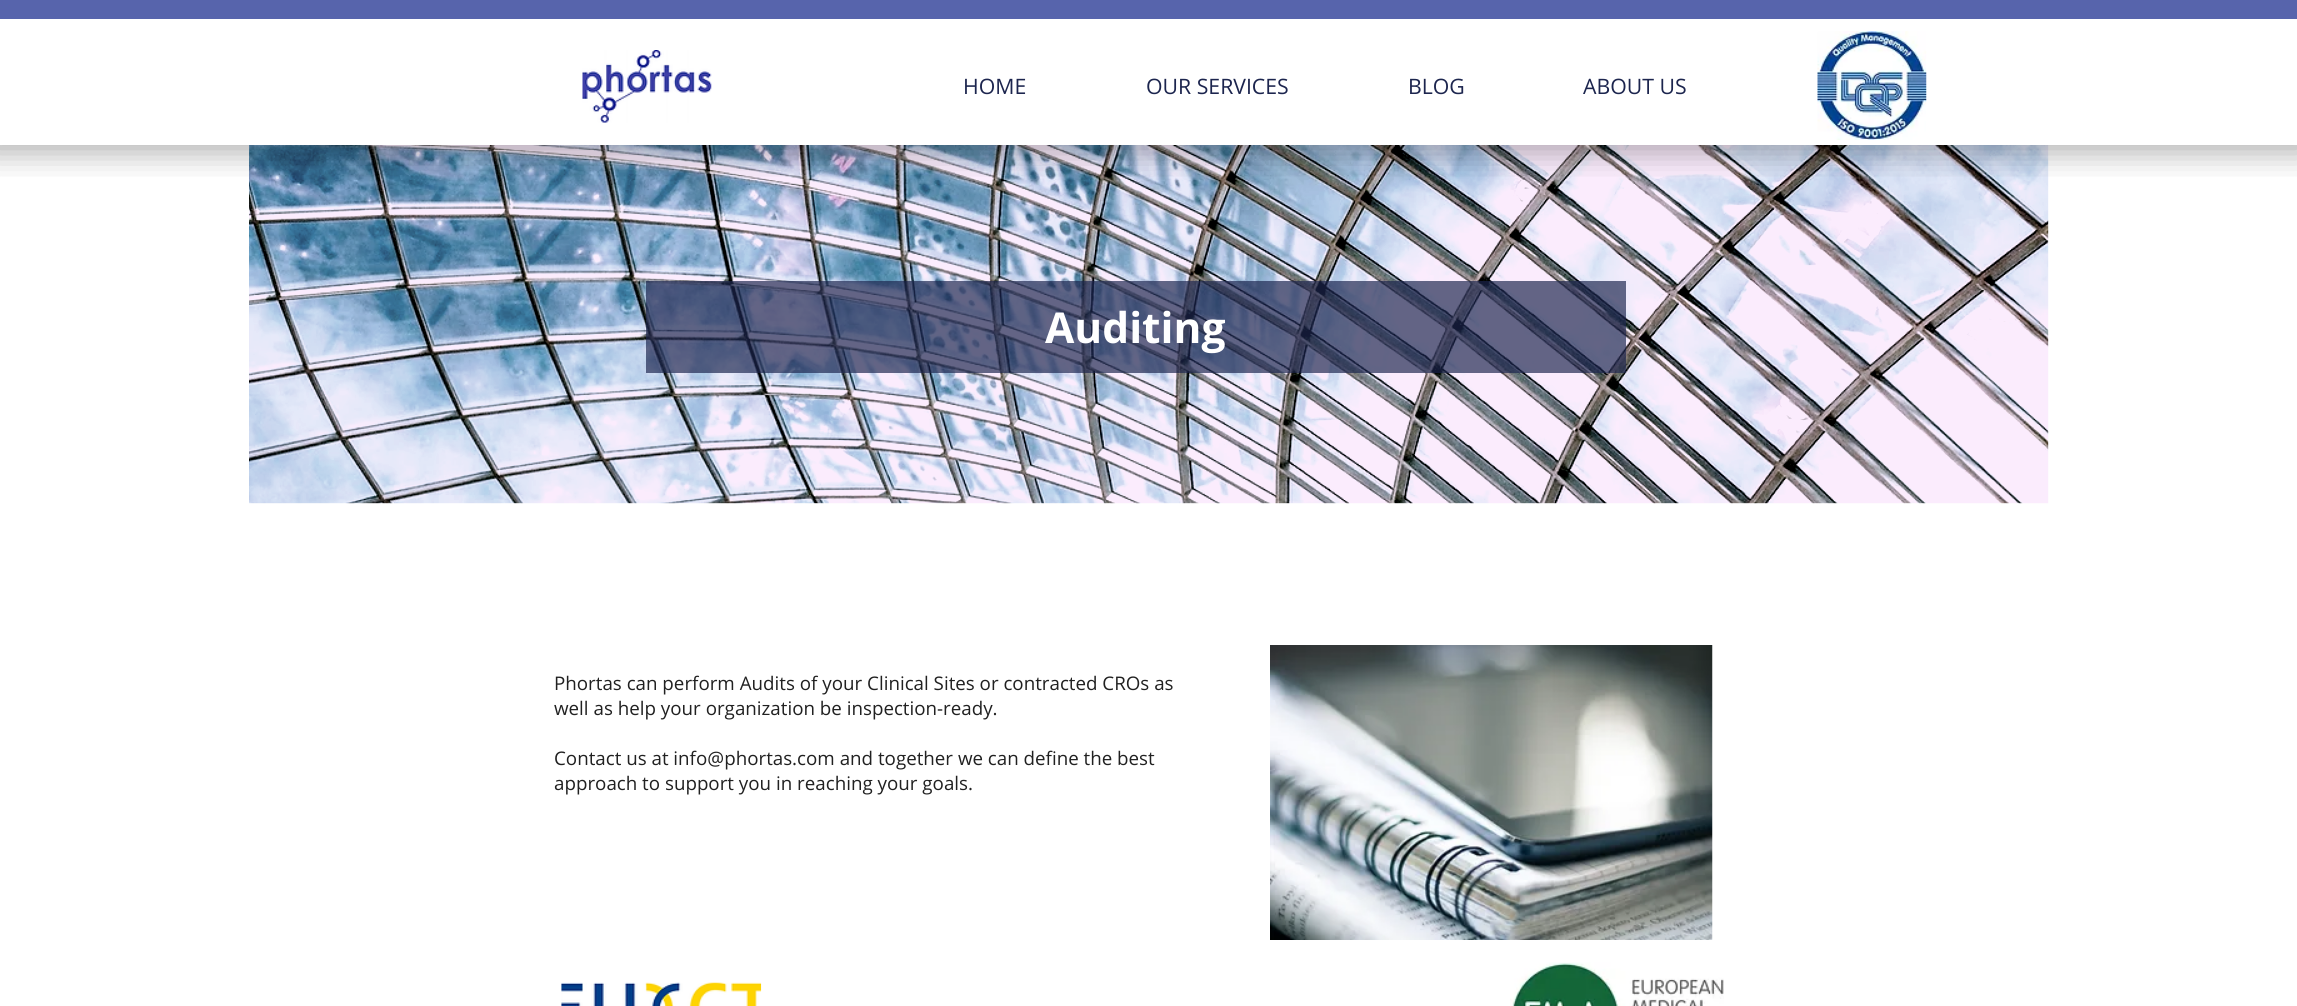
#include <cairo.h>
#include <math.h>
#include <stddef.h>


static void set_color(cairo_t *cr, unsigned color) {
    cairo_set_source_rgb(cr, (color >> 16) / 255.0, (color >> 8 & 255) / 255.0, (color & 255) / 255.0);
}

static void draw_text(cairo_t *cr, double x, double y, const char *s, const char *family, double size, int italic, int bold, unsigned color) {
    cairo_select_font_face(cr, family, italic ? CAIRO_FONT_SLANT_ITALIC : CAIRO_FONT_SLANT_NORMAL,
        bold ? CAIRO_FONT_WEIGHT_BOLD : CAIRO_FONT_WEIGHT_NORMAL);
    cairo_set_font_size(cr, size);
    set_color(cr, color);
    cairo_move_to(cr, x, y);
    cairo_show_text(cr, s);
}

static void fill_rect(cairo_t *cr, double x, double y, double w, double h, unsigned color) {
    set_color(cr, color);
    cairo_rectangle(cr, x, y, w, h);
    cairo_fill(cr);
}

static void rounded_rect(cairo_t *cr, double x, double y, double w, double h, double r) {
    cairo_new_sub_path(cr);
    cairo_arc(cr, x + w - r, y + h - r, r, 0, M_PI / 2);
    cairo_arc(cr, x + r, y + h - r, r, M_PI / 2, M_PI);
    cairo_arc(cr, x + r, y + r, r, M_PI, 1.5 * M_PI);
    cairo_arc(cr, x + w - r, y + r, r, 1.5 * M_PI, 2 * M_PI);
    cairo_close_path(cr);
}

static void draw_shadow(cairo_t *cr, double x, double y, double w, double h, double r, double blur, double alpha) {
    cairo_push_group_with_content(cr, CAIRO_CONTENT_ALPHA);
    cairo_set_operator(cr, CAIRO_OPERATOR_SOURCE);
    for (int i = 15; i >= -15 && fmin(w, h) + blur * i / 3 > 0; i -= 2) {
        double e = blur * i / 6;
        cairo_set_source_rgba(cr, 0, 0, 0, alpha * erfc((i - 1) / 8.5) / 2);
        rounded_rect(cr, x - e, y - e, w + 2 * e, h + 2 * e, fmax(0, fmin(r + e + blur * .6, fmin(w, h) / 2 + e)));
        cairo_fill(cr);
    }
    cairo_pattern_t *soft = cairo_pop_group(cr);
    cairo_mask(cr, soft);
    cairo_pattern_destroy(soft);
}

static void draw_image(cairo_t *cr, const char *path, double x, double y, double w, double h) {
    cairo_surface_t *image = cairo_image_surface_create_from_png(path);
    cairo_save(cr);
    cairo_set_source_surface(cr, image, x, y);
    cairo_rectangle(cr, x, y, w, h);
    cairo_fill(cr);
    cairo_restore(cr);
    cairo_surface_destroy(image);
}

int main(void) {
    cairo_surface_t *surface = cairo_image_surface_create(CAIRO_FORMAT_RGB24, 2297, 1006);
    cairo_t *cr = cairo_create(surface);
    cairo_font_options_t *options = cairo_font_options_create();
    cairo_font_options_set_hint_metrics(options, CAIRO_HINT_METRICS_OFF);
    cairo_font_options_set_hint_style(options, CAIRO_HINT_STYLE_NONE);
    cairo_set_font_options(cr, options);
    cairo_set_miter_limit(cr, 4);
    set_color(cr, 0xFFFFFF);
    cairo_paint(cr);
    draw_image(cr, "assets/img3.png", 249, 145, 1800, 359);
    cairo_save(cr);
    cairo_rectangle(cr, 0, 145, 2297, 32);
    cairo_clip(cr);
    set_color(cr, 0x000000);
    draw_shadow(cr, -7, -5, 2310, 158, 0, 15.5, 0.31);
    cairo_restore(cr);
    fill_rect(cr, 0, 0, 2297, 19, 0x5764AC);
    draw_image(cr, "assets/img1.png", 582, 50, 130, 73);
    draw_text(cr, 963, 94, "HOME", "Open Sans", 21.25, 0, 0, 0x1C254E);
    draw_text(cr, 1146, 94, "OUR SERVICES", "Open Sans", 21.25, 0, 0, 0x1C254E);
    draw_text(cr, 1408, 94, "BLOG", "Open Sans", 21.25, 0, 0, 0x1C254E);
    draw_text(cr, 1583, 94, "ABOUT US", "Open Sans", 21.25, 0, 0, 0x1C254E);
    draw_image(cr, "assets/img2.png", 1817, 31, 110, 109);
    cairo_set_source_rgba(cr, 0.11, 0.145, 0.306, 0.68);
    cairo_rectangle(cr, 646, 281, 980, 92);
    cairo_fill(cr);
    draw_text(cr, 1045, 343, "Auditing", "Open Sans", 42.5, 0, 1, 0xFFFFFF);
    draw_text(cr, 554, 690, "Phortas can perform Audits of your Clinical Sites or contracted CROs as", "Open Sans", 18.75, 0, 0, 0x212121);
    draw_text(cr, 554, 715, "well as help your organization be inspection-ready.", "Open Sans", 18.75, 0, 0, 0x212121);
    draw_text(cr, 554, 765, "Contact us at info@phortas.com and together we can define the best", "Open Sans", 18.75, 0, 0, 0x212121);
    draw_text(cr, 554, 790, "approach to support you in reaching your goals.", "Open Sans", 18.75, 0, 0, 0x212121);
    draw_image(cr, "assets/img4.png", 1270, 645, 443, 295);
    draw_image(cr, "assets/img5.png", 561, 982, 201, 24);
    draw_image(cr, "assets/img6.png", 1510, 962, 214, 44);
    cairo_surface_write_to_png(surface, "output.png");
    cairo_font_options_destroy(options);
    cairo_destroy(cr);
    cairo_surface_destroy(surface);
    return 0;
}
